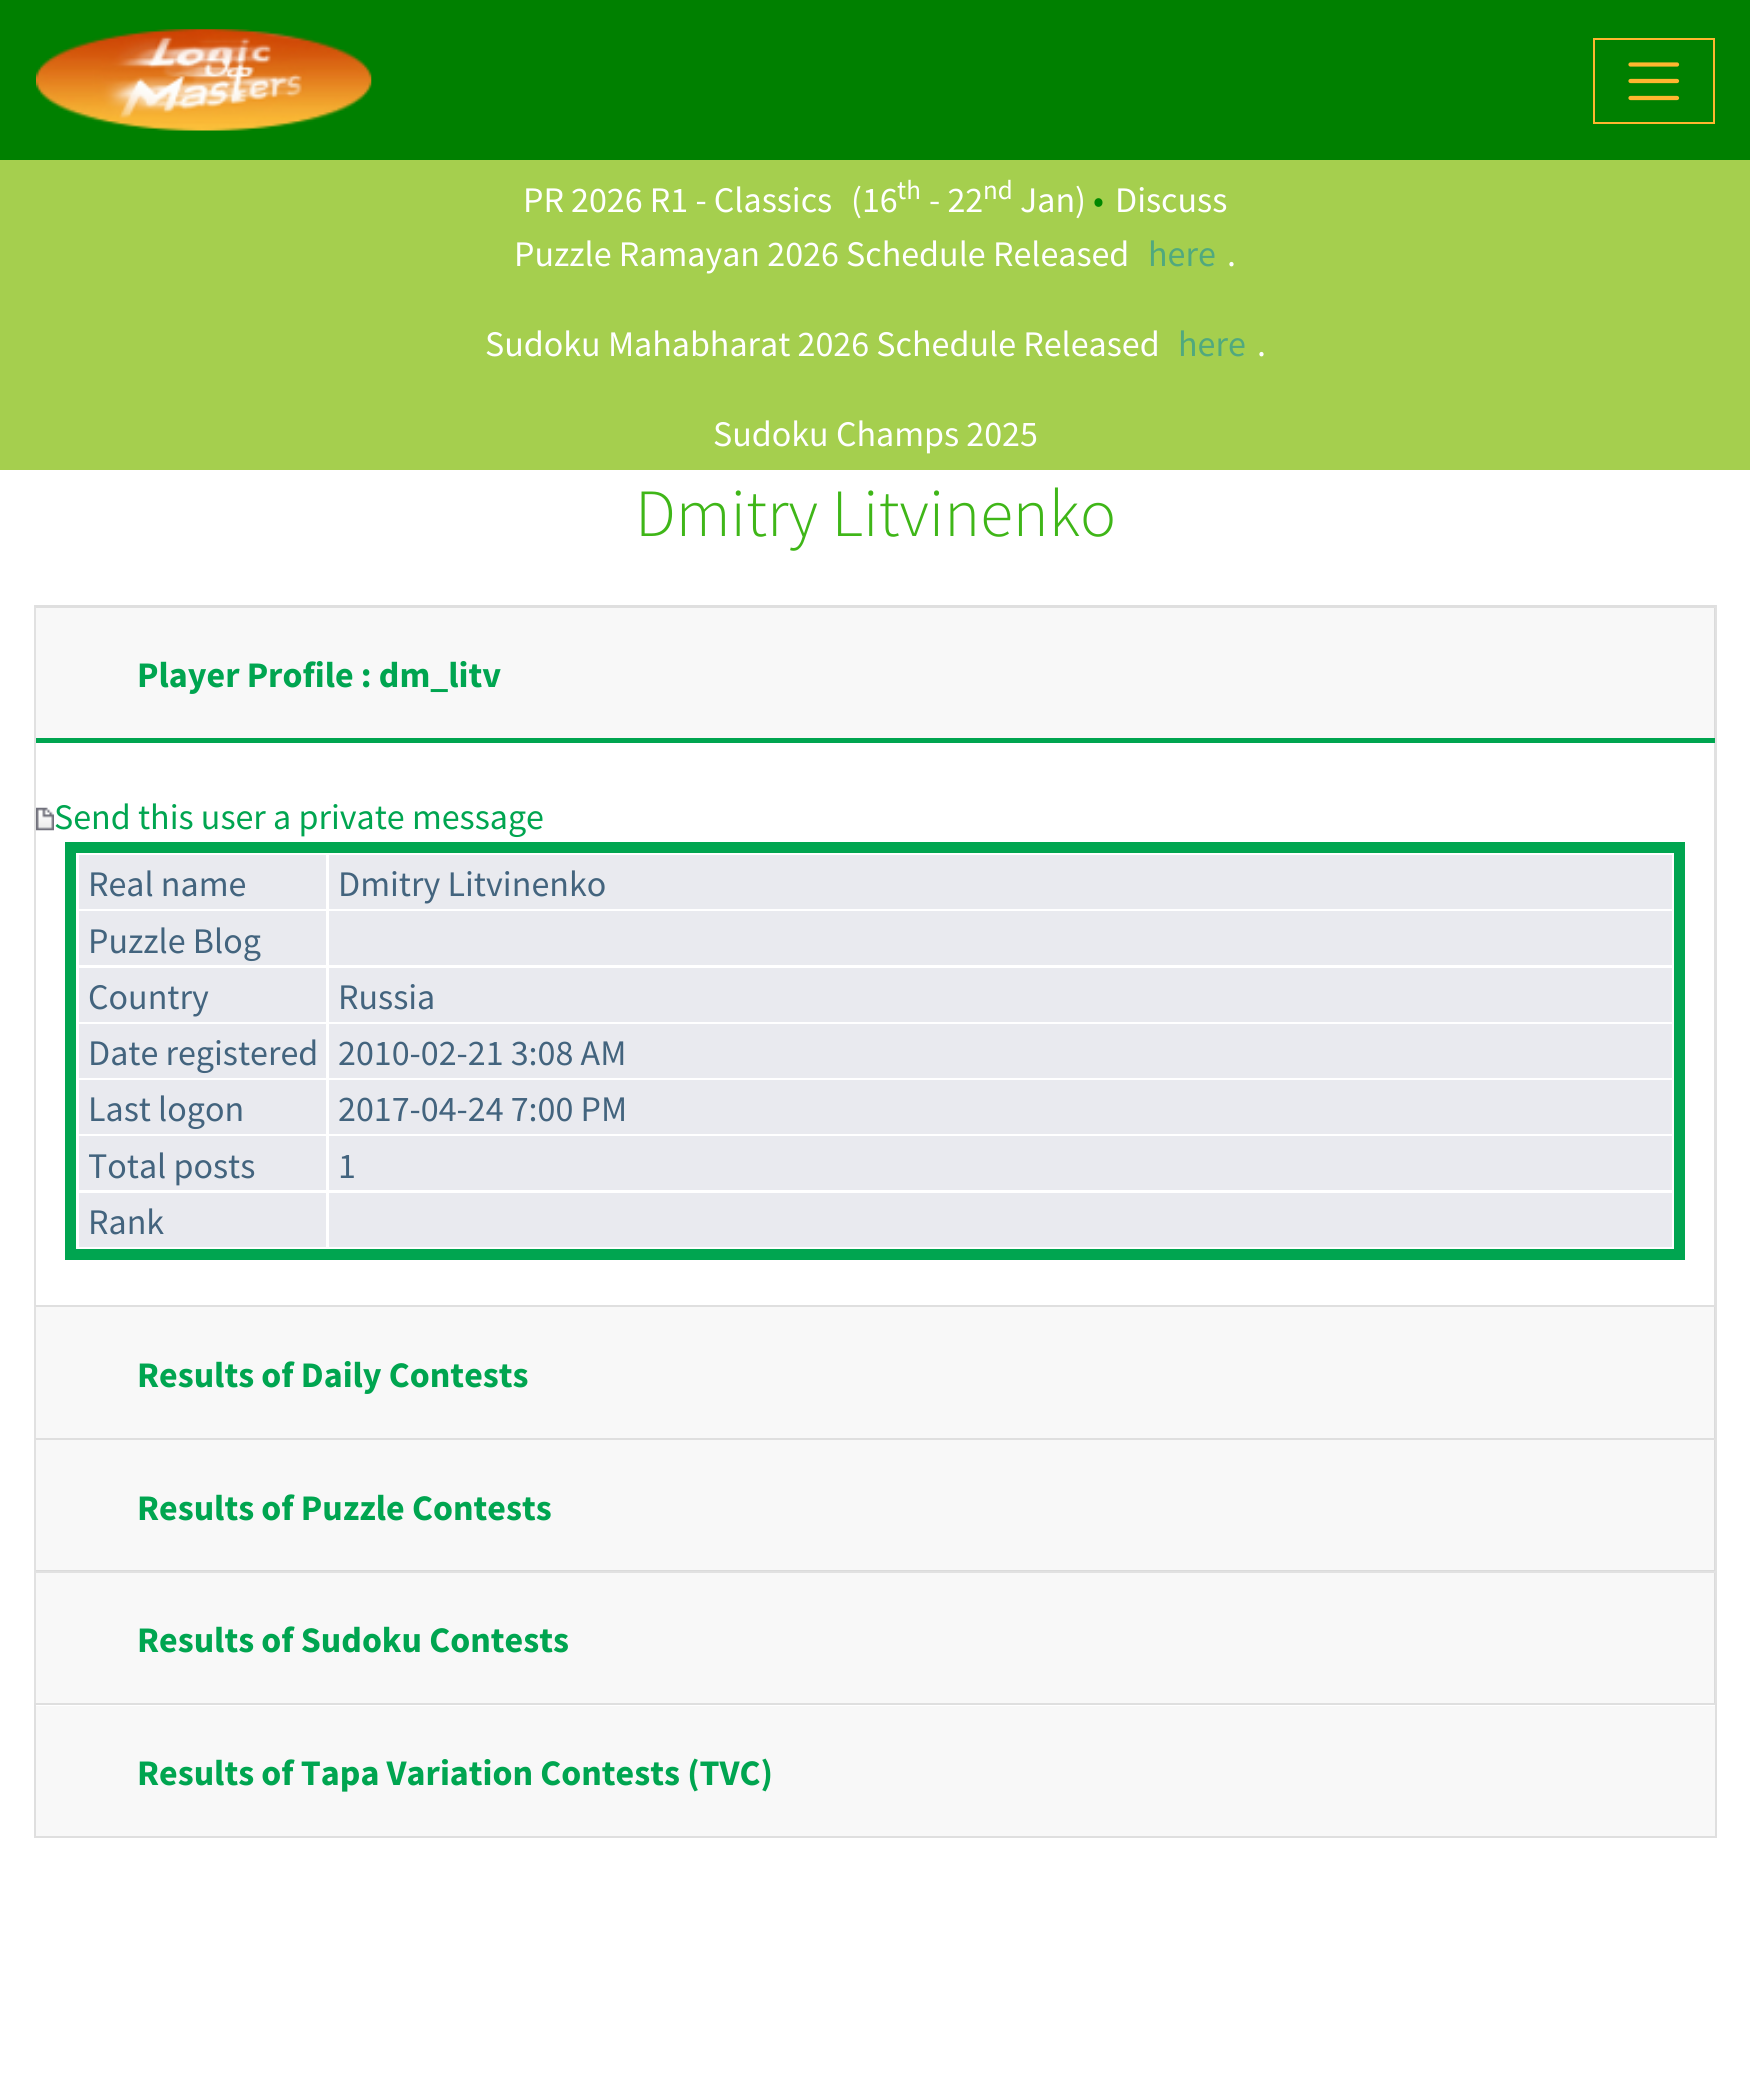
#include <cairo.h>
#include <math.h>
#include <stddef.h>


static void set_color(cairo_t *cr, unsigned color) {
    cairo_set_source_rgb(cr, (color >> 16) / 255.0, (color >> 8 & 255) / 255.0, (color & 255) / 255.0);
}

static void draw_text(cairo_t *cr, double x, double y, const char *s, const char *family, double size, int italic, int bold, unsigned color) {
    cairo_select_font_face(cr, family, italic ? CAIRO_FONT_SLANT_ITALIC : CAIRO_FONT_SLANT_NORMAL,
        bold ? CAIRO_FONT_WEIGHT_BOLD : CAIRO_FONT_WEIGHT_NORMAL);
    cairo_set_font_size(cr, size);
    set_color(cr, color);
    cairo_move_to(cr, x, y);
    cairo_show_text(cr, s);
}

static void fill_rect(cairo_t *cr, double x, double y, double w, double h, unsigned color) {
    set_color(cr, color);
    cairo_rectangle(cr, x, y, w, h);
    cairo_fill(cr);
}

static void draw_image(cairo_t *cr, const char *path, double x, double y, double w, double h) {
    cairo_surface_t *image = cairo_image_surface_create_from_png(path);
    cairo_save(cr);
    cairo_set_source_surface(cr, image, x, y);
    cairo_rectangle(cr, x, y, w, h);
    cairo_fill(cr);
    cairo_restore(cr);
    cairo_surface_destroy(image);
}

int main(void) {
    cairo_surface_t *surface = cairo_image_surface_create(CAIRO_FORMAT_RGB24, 1750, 2089);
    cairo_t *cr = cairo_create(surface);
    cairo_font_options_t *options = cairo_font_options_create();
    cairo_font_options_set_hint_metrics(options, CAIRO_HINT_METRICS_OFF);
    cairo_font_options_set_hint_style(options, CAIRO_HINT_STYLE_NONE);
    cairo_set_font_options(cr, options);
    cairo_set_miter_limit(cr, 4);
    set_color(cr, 0xFFFFFF);
    cairo_paint(cr);
    fill_rect(cr, 0, 0, 1750, 160, 0x008000);
    draw_image(cr, "assets/img1.png", 36, 29, 336, 102);
    cairo_rectangle(cr, 1594, 39, 120, 84);
    set_color(cr, 0xFFB62F);
    cairo_stroke(cr);
    cairo_new_path(cr);
    cairo_move_to(cr, 1630.5, 64.5);
    cairo_line_to(cr, 1677, 64.5);
    cairo_move_to(cr, 1630.5, 81);
    cairo_line_to(cr, 1677, 81);
    cairo_move_to(cr, 1630.5, 98);
    cairo_line_to(cr, 1677, 98);
    cairo_set_line_width(cr, 4.2);
    cairo_set_line_cap(cr, CAIRO_LINE_CAP_ROUND);
    cairo_stroke(cr);
    fill_rect(cr, 0, 160, 1750, 310, 0xA5CF4E);
    draw_text(cr, 523, 212, "PR 2026 R1 - Classics", "Source Sans Pro", 36, 0, 0, 0xFFFFFF);
    draw_text(cr, 851, 212, "(16", "Source Sans Pro", 36, 0, 0, 0xFFFFFF);
    draw_text(cr, 897, 199, "th", "Source Sans Pro", 27, 0, 0, 0xFFFFFF);
    draw_text(cr, 929, 212, "- 22", "Source Sans Pro", 36, 0, 0, 0xFFFFFF);
    draw_text(cr, 983, 199, "nd", "Source Sans Pro", 27, 0, 0, 0xFFFFFF);
    draw_text(cr, 1020, 212, "Jan)", "Source Sans Pro", 36, 0, 0, 0xFFFFFF);
    draw_text(cr, 1093, 212, "•", "Source Sans Pro", 36, 0, 0, 0x008800);
    draw_text(cr, 1115, 212, "Discuss", "Source Sans Pro", 36, 0, 0, 0xFFFFFF);
    draw_text(cr, 514, 266, "Puzzle Ramayan 2026 Schedule Released", "Source Sans Pro", 36, 0, 0, 0xFFFFFF);
    draw_text(cr, 1148, 266, "here", "Source Sans Pro", 36, 0, 0, 0x50A97E);
    draw_text(cr, 1227, 266, ".", "Source Sans Pro", 36, 0, 0, 0xFFFFFF);
    draw_text(cr, 485, 356, "Sudoku Mahabharat 2026 Schedule Released", "Source Sans Pro", 36, 0, 0, 0xFFFFFF);
    draw_text(cr, 1178, 356, "here", "Source Sans Pro", 36, 0, 0, 0x50A97E);
    draw_text(cr, 1257, 356, ".", "Source Sans Pro", 36, 0, 0, 0xFFFFFF);
    draw_text(cr, 713, 446, "Sudoku Champs 2025", "Source Sans Pro", 36, 0, 0, 0xFFFFFF);
    draw_text(cr, 635, 536, "Dmitry Litvinenko", "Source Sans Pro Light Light", 67.5, 0, 0, 0x3FB618);
    set_color(cr, 0xDFDFDF);
    cairo_new_path(cr);
    cairo_move_to(cr, 34, 605);
    cairo_line_to(cr, 1717, 605);
    cairo_line_to(cr, 1714, 608);
    cairo_line_to(cr, 36, 608);
    cairo_close_path(cr);
    cairo_fill(cr);
    cairo_set_source_rgba(cr, 0, 0, 0, 0.12);
    cairo_new_path(cr);
    cairo_move_to(cr, 1717, 605);
    cairo_line_to(cr, 1717, 1305);
    cairo_line_to(cr, 1714, 1305);
    cairo_line_to(cr, 1714, 608);
    cairo_close_path(cr);
    cairo_fill(cr);
    cairo_new_path(cr);
    cairo_move_to(cr, 34, 1305);
    cairo_line_to(cr, 34, 605);
    cairo_line_to(cr, 36, 608);
    cairo_line_to(cr, 36, 1305);
    cairo_close_path(cr);
    cairo_fill(cr);
    cairo_set_source_rgba(cr, 0, 0, 0, 0.03);
    cairo_rectangle(cr, 36, 608, 1679, 130);
    cairo_fill(cr);
    draw_text(cr, 137, 687, "Player Profile : dm_litv", "Source Sans Pro", 36, 0, 1, 0x00A550);
    fill_rect(cr, 36, 738, 1679, 5, 0x00A550);
    draw_image(cr, "assets/img2.png", 36, 807, 18, 24);
    draw_text(cr, 54, 829, "Send this user a private message", "Source Sans Pro", 36, 0, 0, 0x00A550);
    cairo_rectangle(cr, 70.5, 847.5, 1609, 407);
    cairo_set_line_width(cr, 11);
    cairo_set_line_cap(cr, CAIRO_LINE_CAP_BUTT);
    cairo_stroke(cr);
    fill_rect(cr, 79, 855, 247, 54, 0xE9EAEF);
    draw_text(cr, 88, 896, "Real name", "Source Sans Pro", 36, 0, 0, 0x43647E);
    fill_rect(cr, 329, 855, 1343, 54, 0xE9EAEF);
    draw_text(cr, 338, 896, "Dmitry Litvinenko", "Source Sans Pro", 36, 0, 0, 0x43647E);
    fill_rect(cr, 79, 911, 247, 54, 0xE9EAEF);
    draw_text(cr, 88, 953, "Puzzle Blog", "Source Sans Pro", 36, 0, 0, 0x43647E);
    fill_rect(cr, 329, 911, 1343, 54, 0xE9EAEF);
    fill_rect(cr, 79, 968, 247, 54, 0xE9EAEF);
    draw_text(cr, 88, 1009, "Country", "Source Sans Pro", 36, 0, 0, 0x43647E);
    fill_rect(cr, 329, 968, 1343, 54, 0xE9EAEF);
    draw_text(cr, 338, 1009, "Russia", "Source Sans Pro", 36, 0, 0, 0x43647E);
    fill_rect(cr, 79, 1024, 247, 54, 0xE9EAEF);
    draw_text(cr, 88, 1065, "Date registered", "Source Sans Pro", 36, 0, 0, 0x43647E);
    fill_rect(cr, 329, 1024, 1343, 54, 0xE9EAEF);
    draw_text(cr, 338, 1065, "2010-02-21 3:08 AM", "Source Sans Pro", 36, 0, 0, 0x43647E);
    fill_rect(cr, 79, 1080, 247, 54, 0xE9EAEF);
    draw_text(cr, 88, 1121, "Last logon", "Source Sans Pro", 36, 0, 0, 0x43647E);
    fill_rect(cr, 329, 1080, 1343, 54, 0xE9EAEF);
    draw_text(cr, 338, 1121, "2017-04-24 7:00 PM", "Source Sans Pro", 36, 0, 0, 0x43647E);
    fill_rect(cr, 79, 1136, 247, 54, 0xE9EAEF);
    draw_text(cr, 88, 1178, "Total posts", "Source Sans Pro", 36, 0, 0, 0x43647E);
    fill_rect(cr, 329, 1136, 1343, 54, 0xE9EAEF);
    draw_text(cr, 338, 1178, "1", "Source Sans Pro", 36, 0, 0, 0x43647E);
    fill_rect(cr, 79, 1193, 247, 54, 0xE9EAEF);
    draw_text(cr, 88, 1234, "Rank", "Source Sans Pro", 36, 0, 0, 0x43647E);
    fill_rect(cr, 329, 1193, 1343, 54, 0xE9EAEF);
    set_color(cr, 0xDFDFDF);
    cairo_new_path(cr);
    cairo_move_to(cr, 34, 1305);
    cairo_line_to(cr, 1717, 1305);
    cairo_line_to(cr, 1714, 1307);
    cairo_line_to(cr, 36, 1307);
    cairo_close_path(cr);
    cairo_fill(cr);
    cairo_set_source_rgba(cr, 0, 0, 0, 0.12);
    cairo_new_path(cr);
    cairo_move_to(cr, 1717, 1305);
    cairo_line_to(cr, 1717, 1438);
    cairo_line_to(cr, 1714, 1438);
    cairo_line_to(cr, 1714, 1307);
    cairo_close_path(cr);
    cairo_fill(cr);
    cairo_new_path(cr);
    cairo_move_to(cr, 34, 1438);
    cairo_line_to(cr, 34, 1305);
    cairo_line_to(cr, 36, 1307);
    cairo_line_to(cr, 36, 1438);
    cairo_close_path(cr);
    cairo_fill(cr);
    cairo_set_source_rgba(cr, 0, 0, 0, 0.03);
    cairo_rectangle(cr, 36, 1307, 1679, 131);
    cairo_fill(cr);
    draw_text(cr, 137, 1387, "Results of Daily Contests", "Source Sans Pro", 36, 0, 1, 0x00A550);
    set_color(cr, 0xDFDFDF);
    cairo_new_path(cr);
    cairo_move_to(cr, 34, 1438);
    cairo_line_to(cr, 1717, 1438);
    cairo_line_to(cr, 1714, 1440);
    cairo_line_to(cr, 36, 1440);
    cairo_close_path(cr);
    cairo_fill(cr);
    cairo_set_source_rgba(cr, 0, 0, 0, 0.12);
    cairo_new_path(cr);
    cairo_move_to(cr, 1717, 1438);
    cairo_line_to(cr, 1717, 1570);
    cairo_line_to(cr, 1714, 1570);
    cairo_line_to(cr, 1714, 1440);
    cairo_close_path(cr);
    cairo_fill(cr);
    cairo_new_path(cr);
    cairo_move_to(cr, 34, 1570);
    cairo_line_to(cr, 34, 1438);
    cairo_line_to(cr, 36, 1440);
    cairo_line_to(cr, 36, 1570);
    cairo_close_path(cr);
    cairo_fill(cr);
    cairo_set_source_rgba(cr, 0, 0, 0, 0.03);
    cairo_rectangle(cr, 36, 1440, 1679, 131);
    cairo_fill(cr);
    draw_text(cr, 137, 1520, "Results of Puzzle Contests", "Source Sans Pro", 36, 0, 1, 0x00A550);
    cairo_set_source_rgba(cr, 0, 0, 0, 0.12);
    cairo_new_path(cr);
    cairo_move_to(cr, 34, 1570);
    cairo_line_to(cr, 1717, 1570);
    cairo_line_to(cr, 1714, 1573);
    cairo_line_to(cr, 36, 1573);
    cairo_close_path(cr);
    cairo_fill(cr);
    cairo_new_path(cr);
    cairo_move_to(cr, 1717, 1570);
    cairo_line_to(cr, 1717, 1703);
    cairo_line_to(cr, 1714, 1703);
    cairo_line_to(cr, 1714, 1573);
    cairo_close_path(cr);
    cairo_fill(cr);
    cairo_new_path(cr);
    cairo_move_to(cr, 34, 1703);
    cairo_line_to(cr, 34, 1570);
    cairo_line_to(cr, 36, 1573);
    cairo_line_to(cr, 36, 1703);
    cairo_close_path(cr);
    cairo_fill(cr);
    cairo_set_source_rgba(cr, 0, 0, 0, 0.03);
    cairo_rectangle(cr, 36, 1573, 1679, 130);
    cairo_fill(cr);
    draw_text(cr, 137, 1652, "Results of Sudoku Contests", "Source Sans Pro", 36, 0, 1, 0x00A550);
    cairo_rectangle(cr, 35, 1704, 1681, 133);
    set_color(cr, 0xDFDFDF);
    cairo_set_line_width(cr, 2);
    cairo_stroke(cr);
    fill_rect(cr, 36, 1706, 1679, 130, 0xF8F8F8);
    draw_text(cr, 137, 1785, "Results of Tapa Variation Contests (TVC)", "Source Sans Pro", 36, 0, 1, 0x00A550);
    cairo_surface_write_to_png(surface, "output.png");
    cairo_font_options_destroy(options);
    cairo_destroy(cr);
    cairo_surface_destroy(surface);
    return 0;
}
